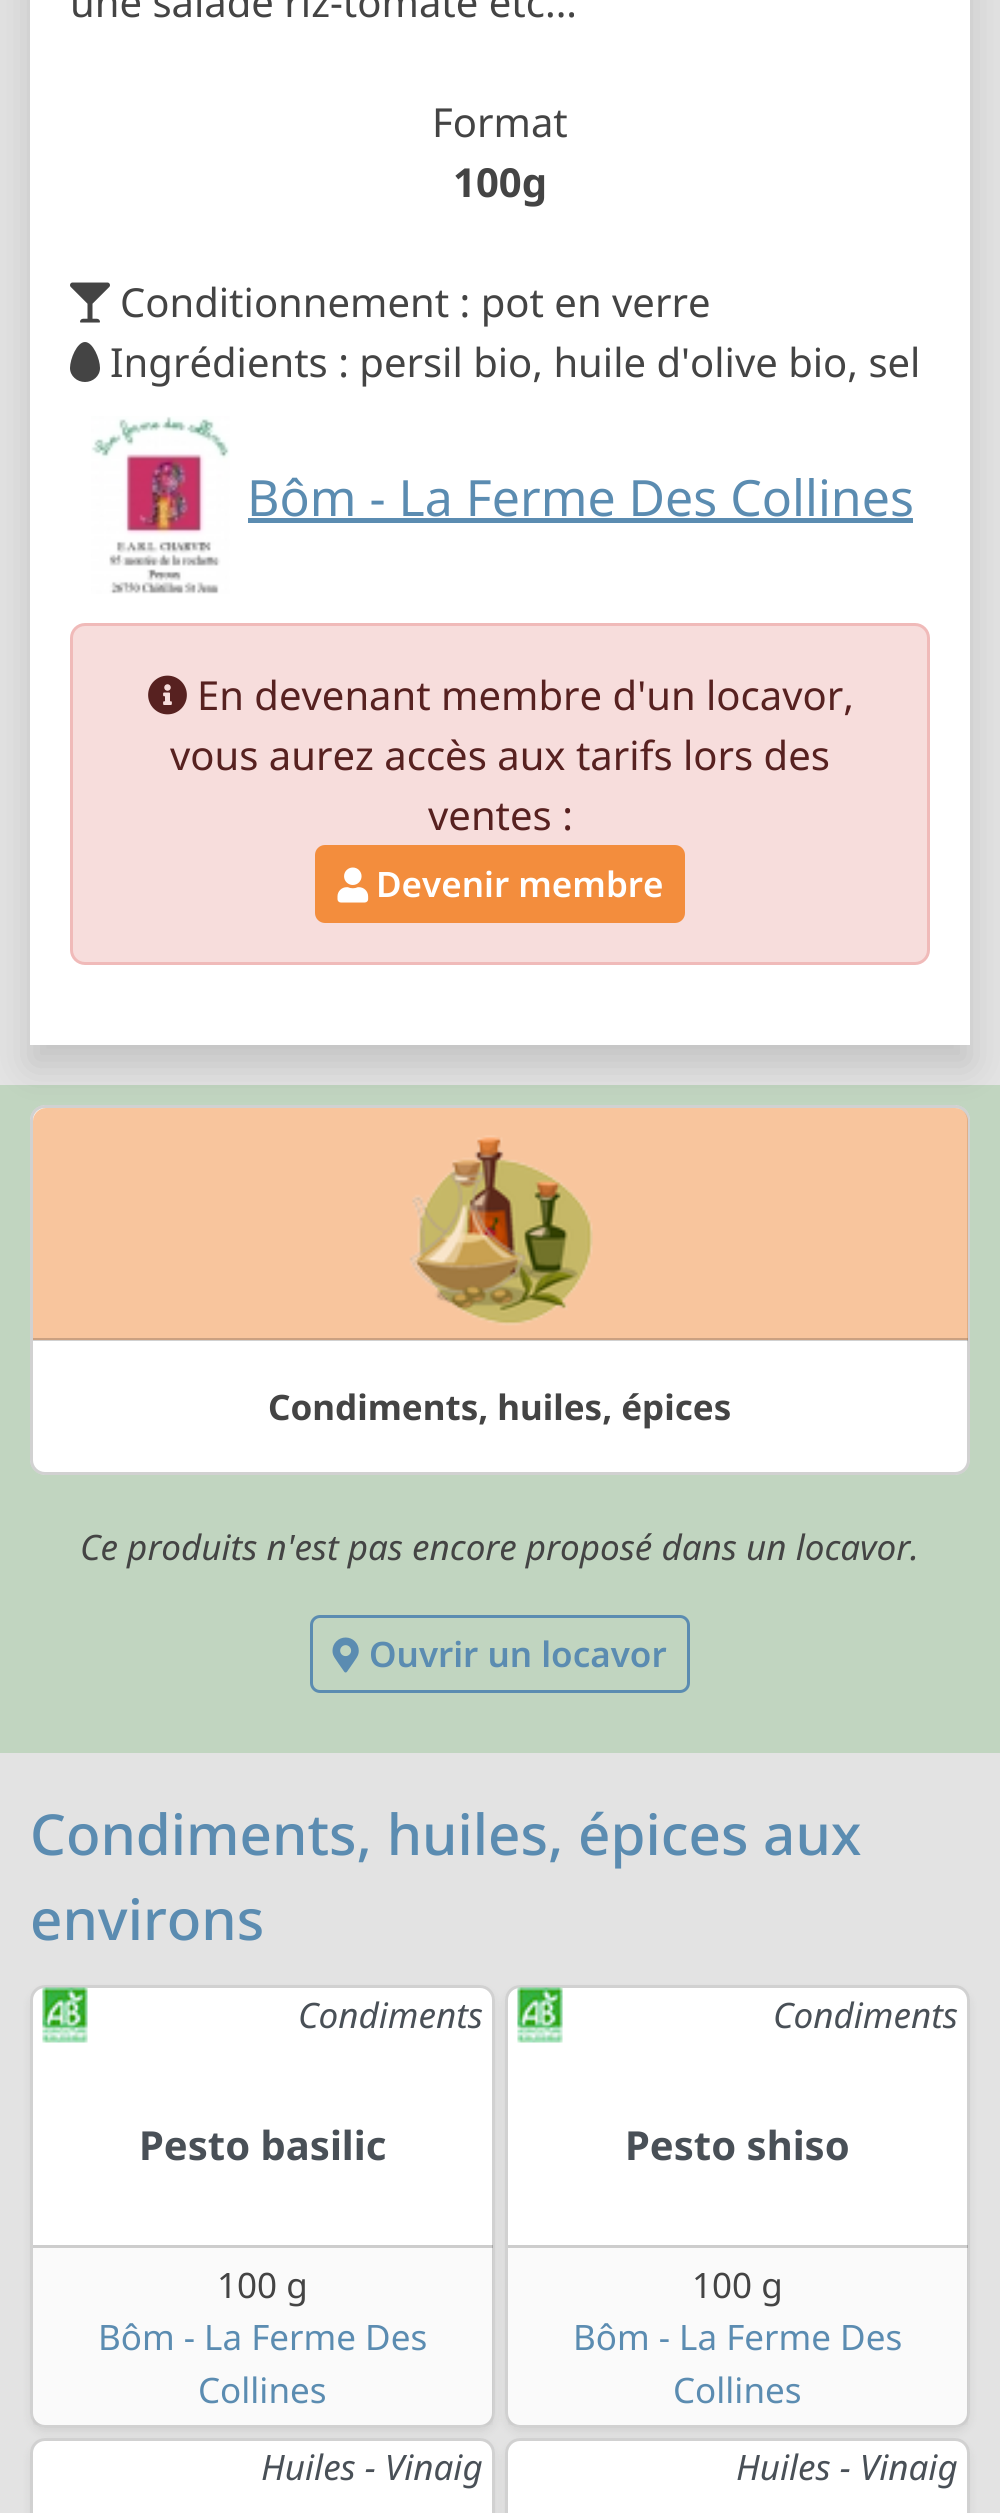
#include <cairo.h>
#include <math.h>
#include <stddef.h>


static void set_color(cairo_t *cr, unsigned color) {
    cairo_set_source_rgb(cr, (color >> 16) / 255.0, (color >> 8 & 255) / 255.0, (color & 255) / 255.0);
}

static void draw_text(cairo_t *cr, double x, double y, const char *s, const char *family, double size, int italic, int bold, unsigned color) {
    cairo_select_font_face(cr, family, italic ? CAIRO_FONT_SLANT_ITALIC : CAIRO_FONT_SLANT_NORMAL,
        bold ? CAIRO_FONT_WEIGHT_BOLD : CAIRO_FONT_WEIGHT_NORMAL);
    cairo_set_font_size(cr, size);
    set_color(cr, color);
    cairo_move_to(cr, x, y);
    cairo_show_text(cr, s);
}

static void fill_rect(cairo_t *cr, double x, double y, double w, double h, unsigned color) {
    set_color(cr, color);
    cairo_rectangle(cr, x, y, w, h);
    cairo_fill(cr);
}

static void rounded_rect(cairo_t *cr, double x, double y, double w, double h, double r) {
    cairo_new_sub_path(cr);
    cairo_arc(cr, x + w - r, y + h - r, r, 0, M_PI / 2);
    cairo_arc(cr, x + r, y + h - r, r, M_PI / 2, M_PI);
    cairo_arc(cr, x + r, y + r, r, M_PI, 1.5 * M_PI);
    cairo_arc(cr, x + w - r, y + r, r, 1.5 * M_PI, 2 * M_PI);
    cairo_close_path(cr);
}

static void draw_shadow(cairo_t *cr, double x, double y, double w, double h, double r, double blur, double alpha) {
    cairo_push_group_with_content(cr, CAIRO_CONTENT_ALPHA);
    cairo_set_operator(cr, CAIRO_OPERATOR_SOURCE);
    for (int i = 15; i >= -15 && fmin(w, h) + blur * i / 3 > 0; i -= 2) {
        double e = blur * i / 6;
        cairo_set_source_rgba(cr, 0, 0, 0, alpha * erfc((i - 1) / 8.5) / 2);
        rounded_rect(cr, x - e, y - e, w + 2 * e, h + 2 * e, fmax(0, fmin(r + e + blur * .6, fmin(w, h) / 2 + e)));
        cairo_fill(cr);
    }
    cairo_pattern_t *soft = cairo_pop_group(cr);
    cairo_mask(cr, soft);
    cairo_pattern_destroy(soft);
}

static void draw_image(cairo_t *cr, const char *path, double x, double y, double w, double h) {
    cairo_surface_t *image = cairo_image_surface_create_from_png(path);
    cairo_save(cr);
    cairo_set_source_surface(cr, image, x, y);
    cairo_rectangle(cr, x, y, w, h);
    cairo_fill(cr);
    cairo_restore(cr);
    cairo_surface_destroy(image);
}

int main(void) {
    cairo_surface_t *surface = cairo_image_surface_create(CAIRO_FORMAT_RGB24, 1000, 2513);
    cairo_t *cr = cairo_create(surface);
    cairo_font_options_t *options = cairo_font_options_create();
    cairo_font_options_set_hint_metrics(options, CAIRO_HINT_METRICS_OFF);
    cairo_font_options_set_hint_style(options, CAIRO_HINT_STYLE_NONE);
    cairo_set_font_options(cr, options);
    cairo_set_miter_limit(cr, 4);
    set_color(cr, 0xE3E3E3);
    cairo_paint(cr);
    fill_rect(cr, 0, 1085, 1000, 668, 0xC1D5C0);
    set_color(cr, 0x000000);
    draw_shadow(cr, 30, -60, 940, 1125, 0, 20, 0.15);
    fill_rect(cr, 30, 0, 940, 1045, 0xFFFFFF);
    draw_text(cr, 70, 17, "une salade riz-tomate etc...", "Noto Sans", 40, 0, 0, 0x444444);
    draw_text(cr, 432, 137, "Format", "Noto Sans", 40, 0, 0, 0x444444);
    draw_text(cr, 453, 197, "100g", "Noto Sans", 40, 0, 1, 0x444444);
    draw_image(cr, "assets/img1.png", 70, 282, 40, 41);
    draw_text(cr, 120, 317, "Conditionnement : pot en verre", "Noto Sans", 40, 0, 0, 0x444444);
    cairo_new_path(cr);
    cairo_move_to(cr, 85, 342);
    cairo_curve_to(cr, 77, 342, 70, 359, 70, 368);
    cairo_curve_to(cr, 70, 376, 77, 382, 85, 382);
    cairo_curve_to(cr, 93, 382, 100, 376, 100, 368);
    cairo_curve_to(cr, 100, 359, 93, 342, 85, 342);
    cairo_close_path(cr);
    cairo_fill(cr);
    draw_text(cr, 110, 377, "Ingrédients : persil bio, huile d'olive bio, sel", "Noto Sans", 40, 0, 0, 0x444444);
    draw_image(cr, "assets/img2.png", 91, 416, 139, 178);
    draw_text(cr, 247, 516, "Bôm - La Ferme Des Collines", "Noto Sans", 50, 0, 0, 0x5B8CB1);
    fill_rect(cr, 248, 518, 665, 5, 0x5B8CB1);
    set_color(cr, 0xF7DDDC);
    rounded_rect(cr, 71.5, 624.5, 857, 339, 13.5);
    cairo_fill_preserve(cr);
    set_color(cr, 0xF0BAB9);
    cairo_set_line_width(cr, 3);
    cairo_stroke(cr);
    draw_image(cr, "assets/img3.png", 148, 675, 39, 40);
    draw_text(cr, 197, 710, "En devenant membre d'un locavor,", "Noto Sans", 40, 0, 0, 0x572120);
    draw_text(cr, 170, 770, "vous aurez accès aux tarifs lors des", "Noto Sans", 40, 0, 0, 0x572120);
    draw_text(cr, 428, 830, "ventes :", "Noto Sans", 40, 0, 0, 0x572120);
    set_color(cr, 0xF38D3D);
    rounded_rect(cr, 316.5, 846.5, 367, 75, 8.5);
    cairo_fill_preserve(cr);
    cairo_stroke(cr);
    draw_image(cr, "assets/img4.png", 337, 867, 32, 36);
    draw_text(cr, 376, 897, "Devenir membre", "Noto Sans SemiBold", 35, 0, 0, 0xFFFFFF);
    rounded_rect(cr, 30, 1105, 940, 370, 15);
    cairo_fill(cr);
    rounded_rect(cr, 31.5, 1106.5, 937, 367, 13.5);
    cairo_set_source_rgba(cr, 0, 0, 0, 0.18);
    cairo_stroke(cr);
    cairo_set_source_rgba(cr, 0.953, 0.553, 0.239, 0.5);
    cairo_new_path(cr);
    cairo_move_to(cr, 46, 1108);
    cairo_line_to(cr, 955, 1108);
    cairo_curve_to(cr, 962, 1108, 968, 1114, 968, 1121);
    cairo_line_to(cr, 968, 1340);
    cairo_line_to(cr, 33, 1340);
    cairo_line_to(cr, 33, 1121);
    cairo_curve_to(cr, 33, 1114, 39, 1108, 46, 1108);
    cairo_close_path(cr);
    cairo_fill(cr);
    cairo_set_source_rgba(cr, 0, 0, 0, 0.18);
    cairo_rectangle(cr, 33, 1338, 935, 3);
    cairo_fill(cr);
    draw_image(cr, "assets/img5.png", 409, 1135, 184, 191);
    draw_text(cr, 268, 1420, "Condiments, huiles, épices", "Noto Sans", 35, 0, 1, 0x444444);
    draw_text(cr, 80, 1560, "Ce produits n'est pas encore proposé dans un locavor.", "Noto Sans", 35, 1, 0, 0x444444);
    rounded_rect(cr, 311.5, 1616.5, 377, 75, 8.5);
    set_color(cr, 0x5B8CB1);
    cairo_stroke(cr);
    draw_image(cr, "assets/img6.png", 332, 1637, 27, 36);
    draw_text(cr, 369, 1667, "Ouvrir un locavor", "Noto Sans SemiBold", 35, 0, 0, 0x5B8CB1);
    draw_text(cr, 30, 1855, "Condiments, huiles, épices aux", "Noto Sans Medium", 56.5, 0, 0, 0x5B8CB1);
    draw_text(cr, 30, 1940, "environs", "Noto Sans Medium", 56.5, 0, 0, 0x5B8CB1);
    set_color(cr, 0x000000);
    draw_shadow(cr, 30, 1990, 465, 443, 15, 5, 0.07);
    set_color(cr, 0xFFFFFF);
    rounded_rect(cr, 30, 1985, 465, 443, 15);
    cairo_fill(cr);
    rounded_rect(cr, 31.5, 1986.5, 462, 440, 13.5);
    cairo_set_source_rgba(cr, 0, 0, 0, 0.18);
    cairo_stroke(cr);
    draw_image(cr, "assets/img7.png", 42, 1987, 46, 56);
    draw_text(cr, 298, 2028, "Condiments", "Noto Sans", 35, 1, 0, 0x495057);
    draw_text(cr, 139, 2160, "Pesto basilic", "Noto Sans", 40, 0, 1, 0x495057);
    cairo_set_source_rgba(cr, 0.267, 0.267, 0.267, 0.03);
    cairo_rectangle(cr, 33, 2245, 460, 180);
    cairo_fill(cr);
    cairo_set_source_rgba(cr, 0, 0, 0, 0.18);
    cairo_rectangle(cr, 33, 2245, 460, 3);
    cairo_fill(cr);
    draw_text(cr, 217, 2298, "100 g", "Noto Sans", 35, 0, 0, 0x444444);
    draw_text(cr, 98, 2350, "Bôm - La Ferme Des", "Noto Sans", 35, 0, 0, 0x5B8CB1);
    draw_text(cr, 198, 2403, "Collines", "Noto Sans", 35, 0, 0, 0x5B8CB1);
    set_color(cr, 0x000000);
    draw_shadow(cr, 505, 1990, 465, 443, 15, 5, 0.07);
    set_color(cr, 0xFFFFFF);
    rounded_rect(cr, 505, 1985, 465, 443, 15);
    cairo_fill(cr);
    rounded_rect(cr, 506.5, 1986.5, 462, 440, 13.5);
    cairo_set_source_rgba(cr, 0, 0, 0, 0.18);
    cairo_stroke(cr);
    draw_image(cr, "assets/img8.png", 517, 1987, 46, 56);
    draw_text(cr, 773, 2028, "Condiments", "Noto Sans", 35, 1, 0, 0x495057);
    draw_text(cr, 625, 2160, "Pesto shiso", "Noto Sans", 40, 0, 1, 0x495057);
    cairo_set_source_rgba(cr, 0.267, 0.267, 0.267, 0.03);
    cairo_rectangle(cr, 508, 2245, 460, 180);
    cairo_fill(cr);
    cairo_set_source_rgba(cr, 0, 0, 0, 0.18);
    cairo_rectangle(cr, 508, 2245, 460, 3);
    cairo_fill(cr);
    draw_text(cr, 692, 2298, "100 g", "Noto Sans", 35, 0, 0, 0x444444);
    draw_text(cr, 573, 2350, "Bôm - La Ferme Des", "Noto Sans", 35, 0, 0, 0x5B8CB1);
    draw_text(cr, 673, 2403, "Collines", "Noto Sans", 35, 0, 0, 0x5B8CB1);
    set_color(cr, 0x000000);
    draw_shadow(cr, 30, 2443, 465, 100, 15, 5, 0.07);
    set_color(cr, 0xFFFFFF);
    rounded_rect(cr, 30, 2438, 465, 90, 15);
    cairo_fill(cr);
    rounded_rect(cr, 31.5, 2439.5, 462, 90, 13.5);
    cairo_set_source_rgba(cr, 0, 0, 0, 0.18);
    cairo_stroke(cr);
    draw_text(cr, 261, 2480, "Huiles - Vinaig", "Noto Sans", 35, 1, 0, 0x495057);
    set_color(cr, 0x000000);
    draw_shadow(cr, 505, 2443, 465, 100, 15, 5, 0.07);
    set_color(cr, 0xFFFFFF);
    rounded_rect(cr, 505, 2438, 465, 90, 15);
    cairo_fill(cr);
    rounded_rect(cr, 506.5, 2439.5, 462, 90, 13.5);
    cairo_set_source_rgba(cr, 0, 0, 0, 0.18);
    cairo_stroke(cr);
    draw_text(cr, 736, 2480, "Huiles - Vinaig", "Noto Sans", 35, 1, 0, 0x495057);
    cairo_surface_write_to_png(surface, "output.png");
    cairo_font_options_destroy(options);
    cairo_destroy(cr);
    cairo_surface_destroy(surface);
    return 0;
}
